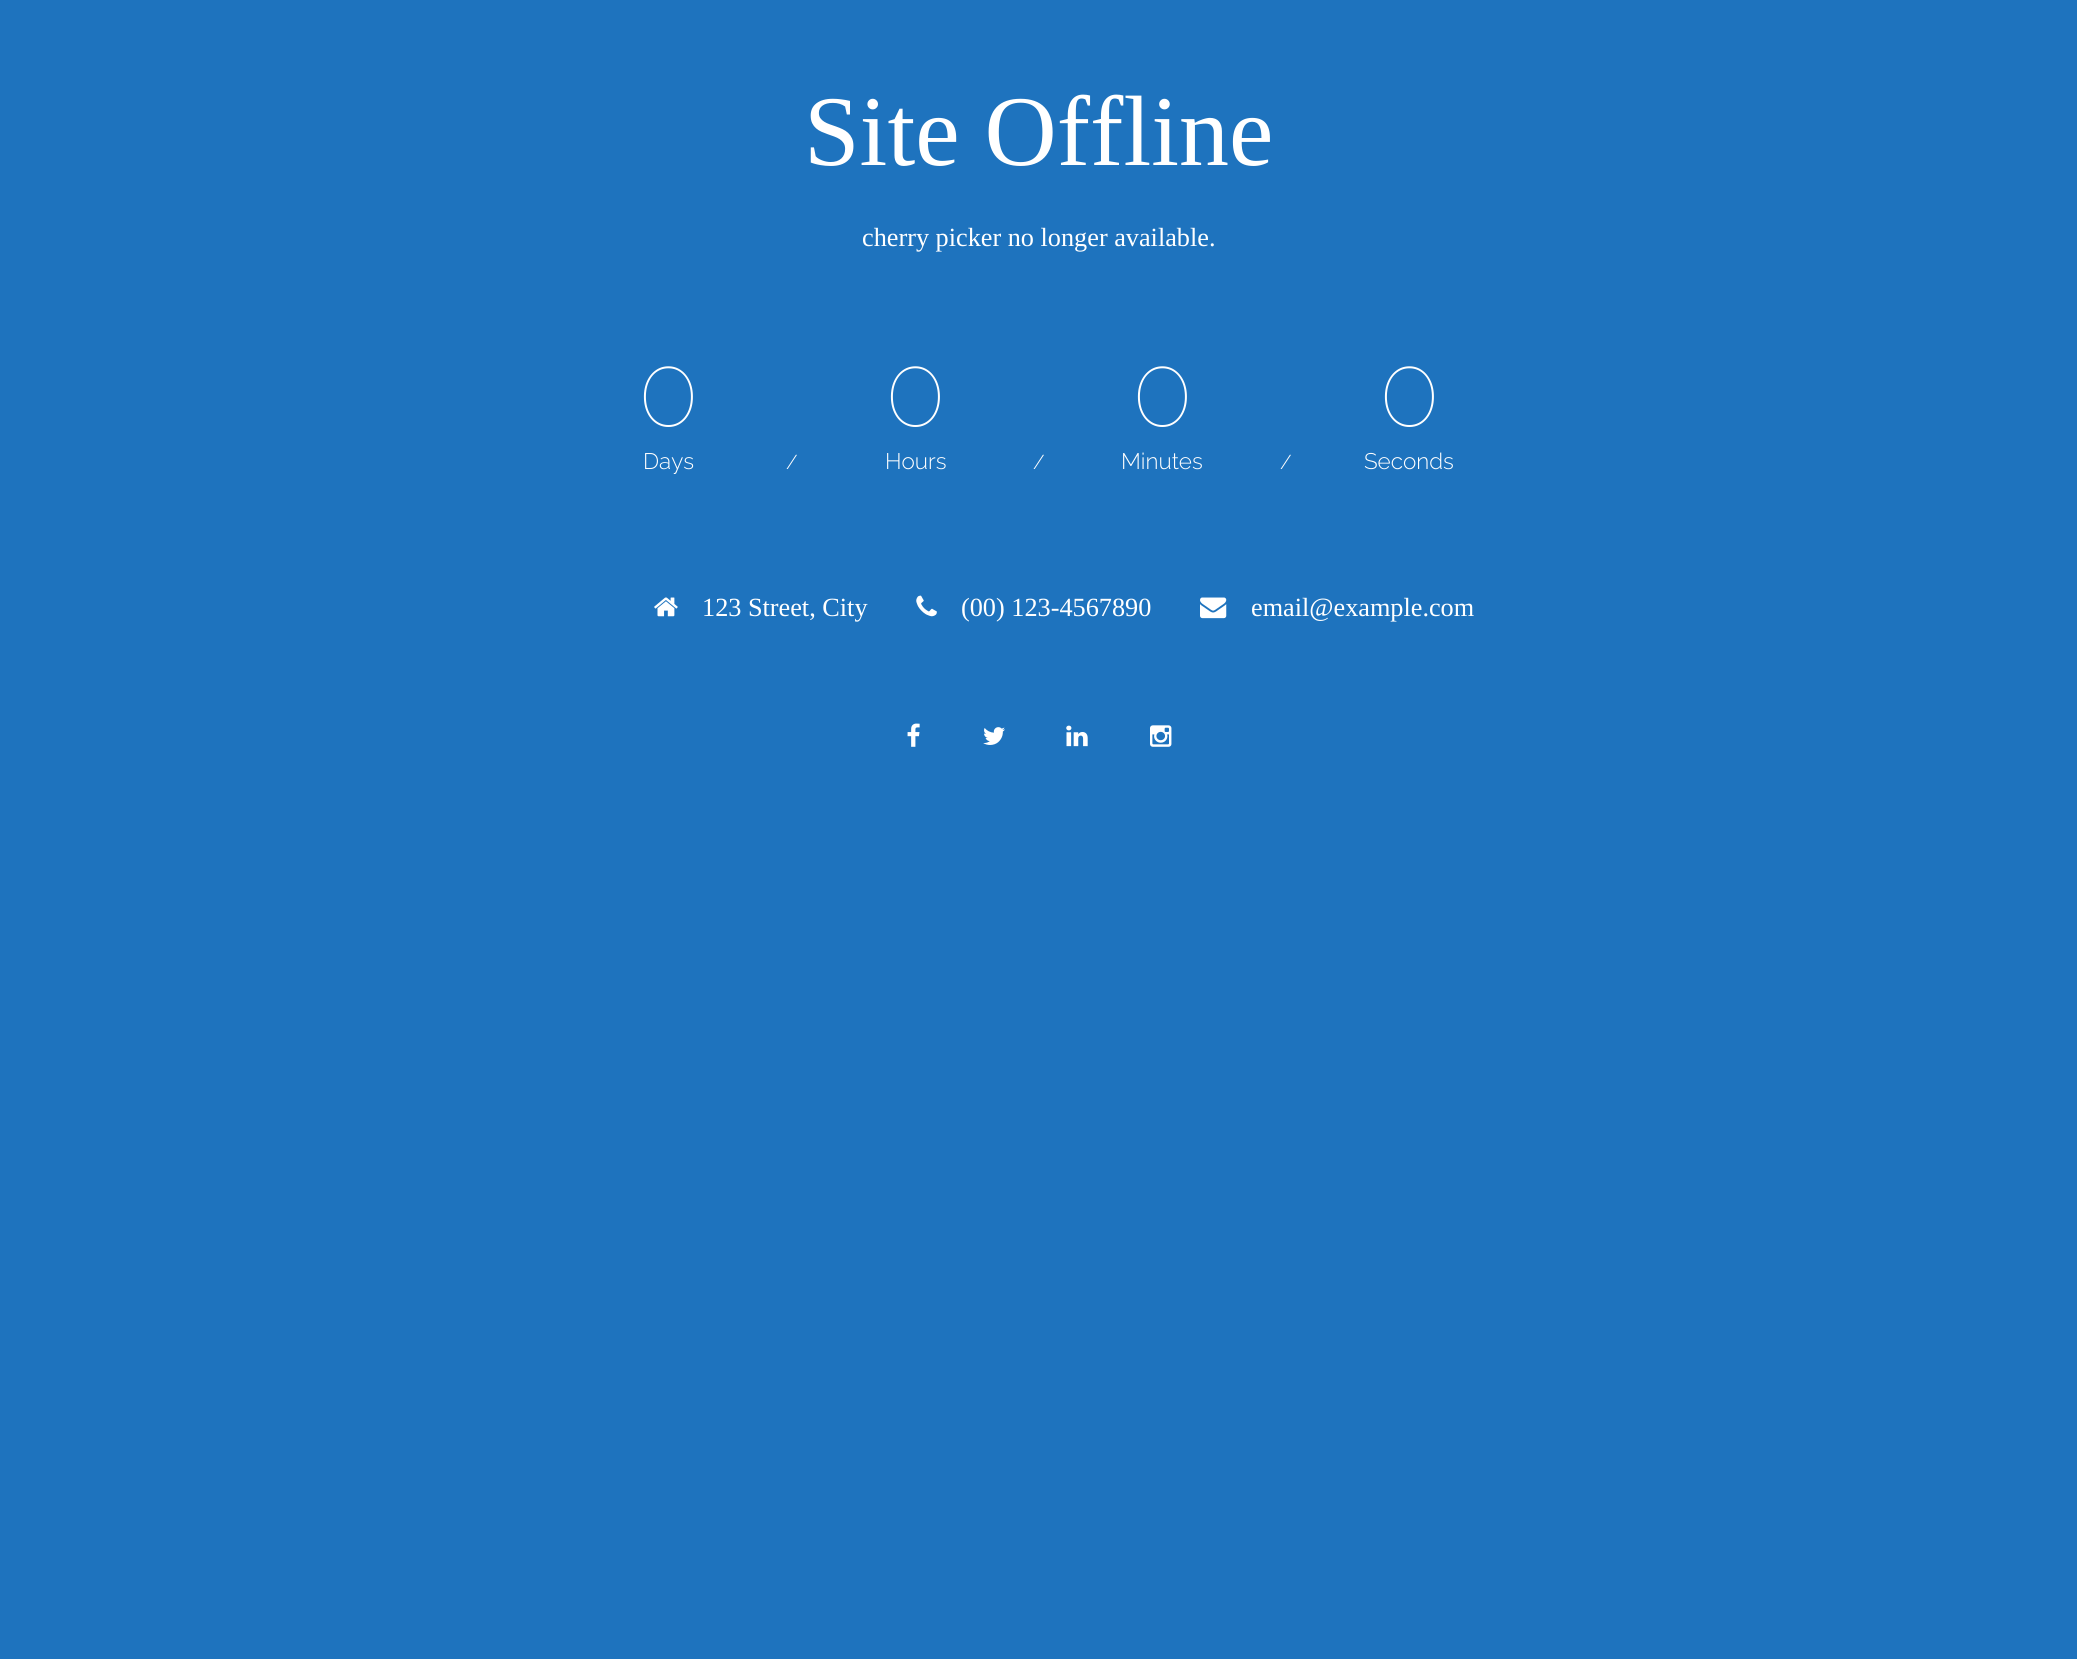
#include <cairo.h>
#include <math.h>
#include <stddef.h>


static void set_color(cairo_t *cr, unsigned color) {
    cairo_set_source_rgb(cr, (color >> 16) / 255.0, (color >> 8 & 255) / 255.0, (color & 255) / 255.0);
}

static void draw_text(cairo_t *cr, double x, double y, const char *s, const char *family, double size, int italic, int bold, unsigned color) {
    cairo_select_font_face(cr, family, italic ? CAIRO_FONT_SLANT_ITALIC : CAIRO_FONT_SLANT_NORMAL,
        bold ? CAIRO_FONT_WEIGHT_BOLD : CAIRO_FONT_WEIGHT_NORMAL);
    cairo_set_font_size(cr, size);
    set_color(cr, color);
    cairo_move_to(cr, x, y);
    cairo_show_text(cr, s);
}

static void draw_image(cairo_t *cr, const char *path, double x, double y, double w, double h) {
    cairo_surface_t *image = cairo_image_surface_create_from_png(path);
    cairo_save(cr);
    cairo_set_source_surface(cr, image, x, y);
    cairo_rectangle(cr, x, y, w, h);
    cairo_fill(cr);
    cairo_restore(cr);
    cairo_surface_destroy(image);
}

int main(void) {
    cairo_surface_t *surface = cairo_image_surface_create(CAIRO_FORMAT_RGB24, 2077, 1659);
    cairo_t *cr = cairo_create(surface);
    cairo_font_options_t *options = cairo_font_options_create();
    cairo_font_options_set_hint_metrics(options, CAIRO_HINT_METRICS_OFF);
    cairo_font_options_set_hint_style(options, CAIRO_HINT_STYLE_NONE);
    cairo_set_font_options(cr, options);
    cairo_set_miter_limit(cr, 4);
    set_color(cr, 0x1E73BE);
    cairo_paint(cr);
    draw_text(cr, 804, 165, "Site Offline", "Liberation Serif", 100, 0, 0, 0xFFFFFF);
    draw_text(cr, 862, 246, "cherry picker no longer available.", "Liberation Serif", 26.25, 0, 0, 0xFFFFFF);
    draw_text(cr, 638, 426, "0", "Raleway Thin", 100, 0, 0, 0xFFFFFF);
    draw_text(cr, 643, 469, "Days", "Raleway Light", 22.5, 0, 0, 0xFFFFFF);
    draw_text(cr, 786, 469, "/", "Raleway Light", 20, 0, 0, 0xFFFFFF);
    draw_text(cr, 885, 426, "0", "Raleway Thin", 100, 0, 0, 0xFFFFFF);
    draw_text(cr, 885, 469, "Hours", "Raleway Light", 22.5, 0, 0, 0xFFFFFF);
    draw_text(cr, 1033, 469, "/", "Raleway Light", 20, 0, 0, 0xFFFFFF);
    draw_text(cr, 1132, 426, "0", "Raleway Thin", 100, 0, 0, 0xFFFFFF);
    draw_text(cr, 1121, 469, "Minutes", "Raleway Light", 22.5, 0, 0, 0xFFFFFF);
    draw_text(cr, 1280, 469, "/", "Raleway Light", 20, 0, 0, 0xFFFFFF);
    draw_text(cr, 1379, 426, "0", "Raleway Thin", 100, 0, 0, 0xFFFFFF);
    draw_text(cr, 1364, 469, "Seconds", "Raleway Light", 22.5, 0, 0, 0xFFFFFF);
    draw_image(cr, "assets/img1.png", 654, 597, 24, 20);
    draw_text(cr, 702, 616, "123 Street, City", "Liberation Serif", 26.25, 0, 0, 0xFFFFFF);
    draw_image(cr, "assets/img2.png", 916, 595, 21, 22);
    draw_text(cr, 961, 616, "(00) 123-4567890", "Liberation Serif", 26.25, 0, 0, 0xFFFFFF);
    draw_image(cr, "assets/img3.png", 1200, 597, 27, 22);
    draw_text(cr, 1251, 616, "email@example.com", "Liberation Serif", 26.25, 0, 0, 0xFFFFFF);
    draw_image(cr, "assets/img4.png", 907, 723, 13, 24);
    draw_image(cr, "assets/img5.png", 983, 727, 22, 18);
    draw_image(cr, "assets/img6.png", 1066, 725, 22, 22);
    draw_image(cr, "assets/img7.png", 1150, 725, 22, 22);
    cairo_surface_write_to_png(surface, "output.png");
    cairo_font_options_destroy(options);
    cairo_destroy(cr);
    cairo_surface_destroy(surface);
    return 0;
}
